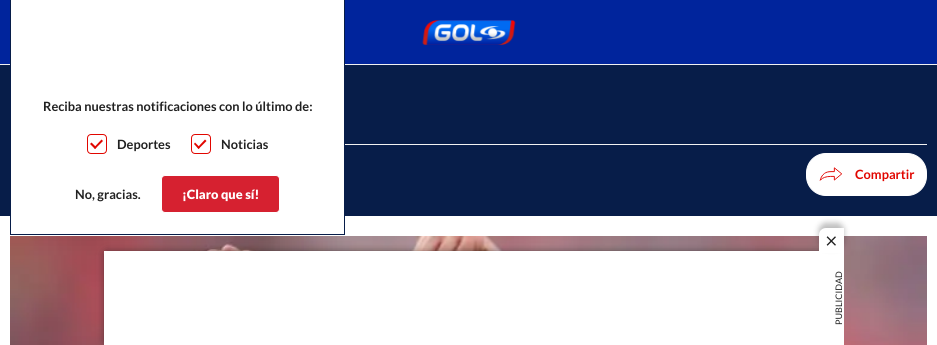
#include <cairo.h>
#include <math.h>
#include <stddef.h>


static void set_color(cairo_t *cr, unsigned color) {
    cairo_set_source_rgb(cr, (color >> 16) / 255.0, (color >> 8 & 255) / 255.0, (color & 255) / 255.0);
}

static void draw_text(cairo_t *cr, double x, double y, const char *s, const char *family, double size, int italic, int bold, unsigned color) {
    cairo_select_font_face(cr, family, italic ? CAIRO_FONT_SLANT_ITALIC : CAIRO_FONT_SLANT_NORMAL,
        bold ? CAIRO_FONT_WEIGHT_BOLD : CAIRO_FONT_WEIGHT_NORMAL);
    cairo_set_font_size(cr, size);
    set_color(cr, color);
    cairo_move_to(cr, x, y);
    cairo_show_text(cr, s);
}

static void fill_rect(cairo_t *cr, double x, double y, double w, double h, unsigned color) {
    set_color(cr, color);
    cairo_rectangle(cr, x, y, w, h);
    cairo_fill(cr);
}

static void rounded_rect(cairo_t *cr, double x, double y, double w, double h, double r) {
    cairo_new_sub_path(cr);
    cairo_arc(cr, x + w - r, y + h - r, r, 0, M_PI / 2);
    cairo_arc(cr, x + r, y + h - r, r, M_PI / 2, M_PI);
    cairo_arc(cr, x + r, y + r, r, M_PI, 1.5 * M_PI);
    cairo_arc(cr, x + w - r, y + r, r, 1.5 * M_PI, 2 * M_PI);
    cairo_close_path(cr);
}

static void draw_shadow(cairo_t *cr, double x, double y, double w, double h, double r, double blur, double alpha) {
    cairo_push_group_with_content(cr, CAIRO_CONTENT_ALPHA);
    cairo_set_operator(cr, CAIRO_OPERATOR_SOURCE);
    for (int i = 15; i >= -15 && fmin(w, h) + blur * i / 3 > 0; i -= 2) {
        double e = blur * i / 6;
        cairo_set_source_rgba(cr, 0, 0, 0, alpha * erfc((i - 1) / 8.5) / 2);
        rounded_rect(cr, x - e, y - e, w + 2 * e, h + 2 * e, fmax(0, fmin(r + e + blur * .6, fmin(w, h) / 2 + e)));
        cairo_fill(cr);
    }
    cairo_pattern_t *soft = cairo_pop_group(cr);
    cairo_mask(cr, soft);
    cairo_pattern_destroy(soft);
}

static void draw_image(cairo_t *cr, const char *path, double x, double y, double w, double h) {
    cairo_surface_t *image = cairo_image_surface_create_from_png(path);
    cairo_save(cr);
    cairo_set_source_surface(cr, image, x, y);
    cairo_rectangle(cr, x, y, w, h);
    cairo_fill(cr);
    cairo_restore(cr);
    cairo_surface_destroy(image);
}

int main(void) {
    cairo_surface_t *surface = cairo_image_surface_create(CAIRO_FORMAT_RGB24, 937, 345);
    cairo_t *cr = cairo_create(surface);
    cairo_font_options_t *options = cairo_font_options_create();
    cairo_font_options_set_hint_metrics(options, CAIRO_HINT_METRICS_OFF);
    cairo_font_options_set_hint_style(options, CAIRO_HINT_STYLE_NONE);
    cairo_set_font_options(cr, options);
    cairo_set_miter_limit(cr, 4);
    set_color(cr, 0xFFFFFF);
    cairo_paint(cr);
    fill_rect(cr, 0, 0, 937, 64, 0x00249C);
    fill_rect(cr, 0, 64, 937, 1, 0xF1F1F1);
    draw_image(cr, "assets/img1.png", 422, 20, 94, 26);
    fill_rect(cr, 0, 65, 937, 151, 0x071D49);
    fill_rect(cr, 11, 0, 333, 216, 0xFFFFFF);
    cairo_rectangle(cr, 10.5, -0.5, 334, 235);
    set_color(cr, 0x071D49);
    cairo_set_line_width(cr, 1);
    cairo_stroke(cr);
    draw_text(cr, 43, 111, "Reciba nuestras notificaciones con lo último de:", "Lato", 12.8, 0, 1, 0x212121);
    rounded_rect(cr, 87.5, 134.5, 19, 19, 3.5);
    set_color(cr, 0xE10600);
    cairo_stroke(cr);
    cairo_new_path(cr);
    cairo_move_to(cr, 101.5, 139.5);
    cairo_line_to(cr, 103, 141);
    cairo_line_to(cr, 95, 149);
    cairo_line_to(cr, 94, 147.5);
    cairo_close_path(cr);
    cairo_fill(cr);
    cairo_new_path(cr);
    cairo_move_to(cr, 91.5, 142.5);
    cairo_line_to(cr, 96.5, 147.5);
    cairo_line_to(cr, 95, 149);
    cairo_line_to(cr, 90, 144);
    cairo_close_path(cr);
    cairo_fill(cr);
    draw_text(cr, 117, 149, "Deportes", "Lato", 12.8, 0, 1, 0x212121);
    rounded_rect(cr, 191.5, 134.5, 19, 19, 3.5);
    set_color(cr, 0xE10600);
    cairo_stroke(cr);
    cairo_new_path(cr);
    cairo_move_to(cr, 205, 139.5);
    cairo_line_to(cr, 206.5, 141);
    cairo_line_to(cr, 198.5, 149);
    cairo_line_to(cr, 197.5, 147.5);
    cairo_close_path(cr);
    cairo_fill(cr);
    cairo_new_path(cr);
    cairo_move_to(cr, 195, 142.5);
    cairo_line_to(cr, 200, 147.5);
    cairo_line_to(cr, 198.5, 149);
    cairo_line_to(cr, 194, 144);
    cairo_close_path(cr);
    cairo_fill(cr);
    draw_text(cr, 221, 149, "Noticias", "Lato", 12.8, 0, 1, 0x212121);
    draw_text(cr, 75, 199, "No, gracias.", "Lato", 12.8, 0, 1, 0x212121);
    set_color(cr, 0xD62130);
    rounded_rect(cr, 161.5, 175.5, 118, 37, 3.5);
    cairo_fill_preserve(cr);
    set_color(cr, 0xFFFFFF);
    cairo_stroke(cr);
    draw_text(cr, 182, 199, "¡Claro que sí!", "Lato Black", 12.8, 0, 0, 0xFFFFFF);
    fill_rect(cr, 345, 144, 582, 1, 0xF1F1F1);
    set_color(cr, 0xFFFFFF);
    rounded_rect(cr, 806.5, 153.5, 120, 42, 19.5);
    cairo_fill_preserve(cr);
    cairo_stroke(cr);
    draw_image(cr, "assets/img2.png", 819, 167, 23, 14);
    draw_text(cr, 855, 179, "Compartir", "Lato", 12.8, 0, 1, 0xE10600);
    draw_image(cr, "assets/img3.png", 10, 236, 917, 109);
    set_color(cr, 0x212121);
    draw_shadow(cr, 107, 254, 724, 88, 0, 5, 1);
    fill_rect(cr, 104, 251, 727, 94, 0xFFFFFF);
    fill_rect(cr, 831, 253, 13, 92, 0xFFFFFF);
    set_color(cr, 0x212121);
    draw_shadow(cr, 819, 223, 25, 25, 7, 3, 0.3);
    set_color(cr, 0xFFFFFF);
    cairo_new_path(cr);
    cairo_move_to(cr, 826, 228);
    cairo_line_to(cr, 844, 228);
    cairo_line_to(cr, 844, 253);
    cairo_line_to(cr, 819, 253);
    cairo_line_to(cr, 819, 235);
    cairo_curve_to(cr, 819, 231, 822, 228, 826, 228);
    cairo_close_path(cr);
    cairo_fill(cr);
    draw_image(cr, "assets/img4.png", 826, 236, 10, 10);
    cairo_save(cr);
    cairo_translate(cr, 842, 325);
    cairo_rotate(cr, -90 * M_PI / 180);
    draw_text(cr, 0, 0, "PUBLICIDAD", "Lato", 9, 0, 0, 0x212121);
    cairo_restore(cr);
    cairo_surface_write_to_png(surface, "output.png");
    cairo_font_options_destroy(options);
    cairo_destroy(cr);
    cairo_surface_destroy(surface);
    return 0;
}
